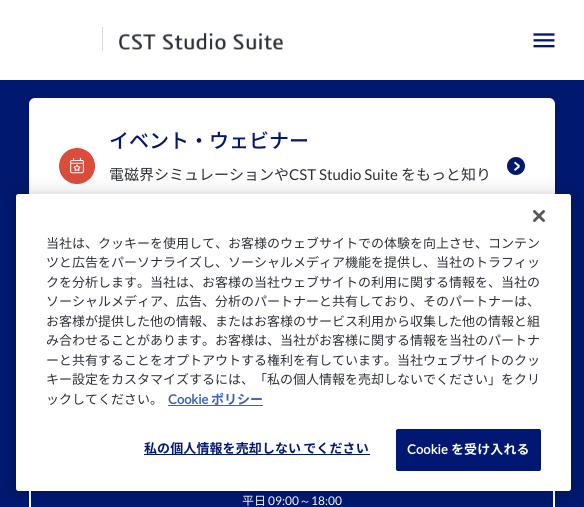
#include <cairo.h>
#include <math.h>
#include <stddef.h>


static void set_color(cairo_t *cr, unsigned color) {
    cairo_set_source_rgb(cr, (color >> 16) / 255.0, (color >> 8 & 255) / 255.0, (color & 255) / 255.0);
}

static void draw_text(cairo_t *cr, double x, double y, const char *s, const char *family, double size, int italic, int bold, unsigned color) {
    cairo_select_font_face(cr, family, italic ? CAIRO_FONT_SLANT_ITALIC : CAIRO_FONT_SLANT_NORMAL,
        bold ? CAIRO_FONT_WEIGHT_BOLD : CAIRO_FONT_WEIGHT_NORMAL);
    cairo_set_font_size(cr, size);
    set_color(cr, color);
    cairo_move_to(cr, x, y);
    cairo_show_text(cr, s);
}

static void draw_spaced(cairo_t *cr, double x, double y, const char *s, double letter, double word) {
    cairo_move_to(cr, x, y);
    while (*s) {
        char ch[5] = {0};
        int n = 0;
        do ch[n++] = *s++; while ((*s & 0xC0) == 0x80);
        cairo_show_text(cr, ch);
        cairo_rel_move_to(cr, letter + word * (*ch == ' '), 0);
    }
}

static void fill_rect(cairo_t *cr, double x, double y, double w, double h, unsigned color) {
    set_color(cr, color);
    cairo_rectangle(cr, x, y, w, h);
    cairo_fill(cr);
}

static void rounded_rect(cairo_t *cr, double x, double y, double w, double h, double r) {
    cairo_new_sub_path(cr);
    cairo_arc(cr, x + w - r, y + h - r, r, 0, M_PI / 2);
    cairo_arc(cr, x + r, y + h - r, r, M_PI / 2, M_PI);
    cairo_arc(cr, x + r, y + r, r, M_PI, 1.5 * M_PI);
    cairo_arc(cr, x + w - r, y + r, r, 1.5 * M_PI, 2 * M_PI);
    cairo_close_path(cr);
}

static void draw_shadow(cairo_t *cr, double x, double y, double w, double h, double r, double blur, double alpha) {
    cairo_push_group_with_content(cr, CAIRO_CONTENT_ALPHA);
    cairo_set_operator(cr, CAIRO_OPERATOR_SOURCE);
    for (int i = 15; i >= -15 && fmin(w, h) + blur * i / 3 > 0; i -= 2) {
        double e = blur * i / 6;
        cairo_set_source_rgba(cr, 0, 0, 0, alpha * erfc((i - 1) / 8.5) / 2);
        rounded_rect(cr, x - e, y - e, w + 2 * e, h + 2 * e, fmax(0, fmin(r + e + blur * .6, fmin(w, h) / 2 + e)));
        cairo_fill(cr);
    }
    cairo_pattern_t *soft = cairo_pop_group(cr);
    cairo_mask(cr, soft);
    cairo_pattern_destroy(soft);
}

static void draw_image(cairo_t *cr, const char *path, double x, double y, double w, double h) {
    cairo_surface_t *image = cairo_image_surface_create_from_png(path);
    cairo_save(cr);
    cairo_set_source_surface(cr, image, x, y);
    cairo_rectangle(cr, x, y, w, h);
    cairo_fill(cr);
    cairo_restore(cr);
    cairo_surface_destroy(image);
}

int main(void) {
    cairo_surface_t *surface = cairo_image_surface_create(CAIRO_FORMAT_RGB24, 584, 507);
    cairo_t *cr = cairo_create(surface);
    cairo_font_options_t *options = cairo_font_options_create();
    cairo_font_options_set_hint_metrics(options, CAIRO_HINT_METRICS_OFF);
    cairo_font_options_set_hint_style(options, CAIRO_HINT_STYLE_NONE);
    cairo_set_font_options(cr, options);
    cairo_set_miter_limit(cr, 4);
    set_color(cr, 0x001870);
    cairo_paint(cr);
    set_color(cr, 0xFFFFFF);
    rounded_rect(cr, 29, 98, 526, 137, 6);
    cairo_fill(cr);
    set_color(cr, 0x000000);
    draw_shadow(cr, 9, 5, 574, 71, 0, 10, 0.1);
    fill_rect(cr, 0, 0, 584, 80, 0xFFFFFF);
    fill_rect(cr, 0, 80, 584, 1, 0x001871);
    fill_rect(cr, 102, 27, 1, 24, 0xD7D7D7);
    draw_image(cr, "assets/img1.png", 119, 32, 164, 18);
    draw_image(cr, "assets/img2.png", 533, 33, 22, 15);
    draw_text(cr, 109, 148, "イベント・ウェビナー", "Noto Sans JP Medium", 20, 0, 0, 0x001871);
    draw_image(cr, "assets/img3.png", 59, 148, 36, 36);
    draw_text(cr, 109, 180, "電磁界シミュレーションや", "Noto Sans JP", 15, 0, 0, 0x2B2F38);
    draw_text(cr, 289, 180, "CST Studio Suite", "Lato", 15, 0, 0, 0x2B2F38);
    draw_text(cr, 401, 180, "をもっと知り", "Noto Sans JP", 15, 0, 0, 0x2B2F38);
    set_color(cr, 0x001870);
    cairo_new_path(cr);
    cairo_arc(cr, 516, 166, 9, 0, 2 * M_PI);
    cairo_fill(cr);
    set_color(cr, 0xFFFFFF);
    cairo_new_path(cr);
    cairo_move_to(cr, 514, 169.5);
    cairo_line_to(cr, 518.5, 165.5);
    cairo_line_to(cr, 520, 167);
    cairo_line_to(cr, 515, 171);
    cairo_close_path(cr);
    cairo_fill(cr);
    cairo_new_path(cr);
    cairo_move_to(cr, 515, 161.5);
    cairo_line_to(cr, 520, 165.5);
    cairo_line_to(cr, 518.5, 167);
    cairo_line_to(cr, 514, 163);
    cairo_close_path(cr);
    cairo_fill(cr);
    cairo_rectangle(cr, 30, 276, 524, 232);
    cairo_stroke(cr);
    draw_text(cr, 242, 505, "平日", "Noto Sans JP", 12, 0, 0, 0xFFFFFF);
    draw_text(cr, 268, 505, "09:00", "Lato", 12, 0, 0, 0xFFFFFF);
    draw_text(cr, 299, 505, "～", "WenQuanYi Zen Hei Medium", 12, 0, 0, 0xFFFFFF);
    draw_text(cr, 311, 505, "18:00", "Lato", 12, 0, 0, 0xFFFFFF);
    set_color(cr, 0x000000);
    draw_shadow(cr, 16, 194, 555, 297, 2.5, 9, 0.2);
    set_color(cr, 0xFFFFFF);
    rounded_rect(cr, 16, 194, 555, 297, 2.5);
    cairo_fill(cr);
    draw_image(cr, "assets/img4.png", 533, 210, 12, 12);
    draw_text(cr, 46, 248, "当社は、クッキーを使用して、お客様のウェブサイトでの体験を向上させ、コンテン", "Noto Sans JP", 13, 0, 0, 0x2B2F38);
    draw_text(cr, 46, 267, "ツと広告をパーソナライズし、ソーシャルメディア機能を提供し、当社のトラフィッ", "Noto Sans JP", 13, 0, 0, 0x2B2F38);
    draw_text(cr, 46, 287, "クを分析します。当社は、お客様の当社ウェブサイトの利用に関する情報を、当社の", "Noto Sans JP", 13, 0, 0, 0x2B2F38);
    draw_text(cr, 46, 306, "ソーシャルメディア、広告、分析のパートナーと共有しており、そのパートナーは、", "Noto Sans JP", 13, 0, 0, 0x2B2F38);
    draw_text(cr, 46, 326, "お客様が提供した他の情報、またはお客様のサービス利用から収集した他の情報と組", "Noto Sans JP", 13, 0, 0, 0x2B2F38);
    draw_text(cr, 46, 345, "み合わせることがあります。お客様は、当社がお客様に関する情報を当社のパートナ", "Noto Sans JP", 13, 0, 0, 0x2B2F38);
    draw_text(cr, 46, 365, "ーと共有することをオプトアウトする権利を有しています。当社ウェブサイトのクッ", "Noto Sans JP", 13, 0, 0, 0x2B2F38);
    draw_text(cr, 46, 384, "キー設定をカスタマイズするには、「私の個人情報を売却しないでください」をクリ", "Noto Sans JP", 13, 0, 0, 0x2B2F38);
    draw_text(cr, 46, 404, "ックしてください。", "Noto Sans JP", 13, 0, 0, 0x2B2F38);
    draw_text(cr, 168, 404, "Cookie", "Lato", 13, 0, 1, 0x3860BE);
    fill_rect(cr, 168, 405, 95, 1, 0x3860BE);
    draw_text(cr, 211, 404, "ポリシー", "Noto Sans JP", 13, 0, 1, 0x3860BE);
    fill_rect(cr, 144, 454, 226, 1, 0x001871);
    draw_spaced(cr, 144, 453, "私の個人情報を売却しない でください", 0.1, -1);
    rounded_rect(cr, 396.5, 429.5, 144, 41, 1.5);
    cairo_fill_preserve(cr);
    cairo_set_line_width(cr, 1);
    cairo_stroke(cr);
    cairo_select_font_face(cr, "Lato", CAIRO_FONT_SLANT_NORMAL, CAIRO_FONT_WEIGHT_BOLD);
    set_color(cr, 0xFFFFFF);
    draw_spaced(cr, 407, 454, "Cookie", 0.1, 0);
    cairo_select_font_face(cr, "Noto Sans JP", CAIRO_FONT_SLANT_NORMAL, CAIRO_FONT_WEIGHT_BOLD);
    draw_spaced(cr, 451, 454, "を受け入れる", 0.1, 0);
    cairo_surface_write_to_png(surface, "output.png");
    cairo_font_options_destroy(options);
    cairo_destroy(cr);
    cairo_surface_destroy(surface);
    return 0;
}
